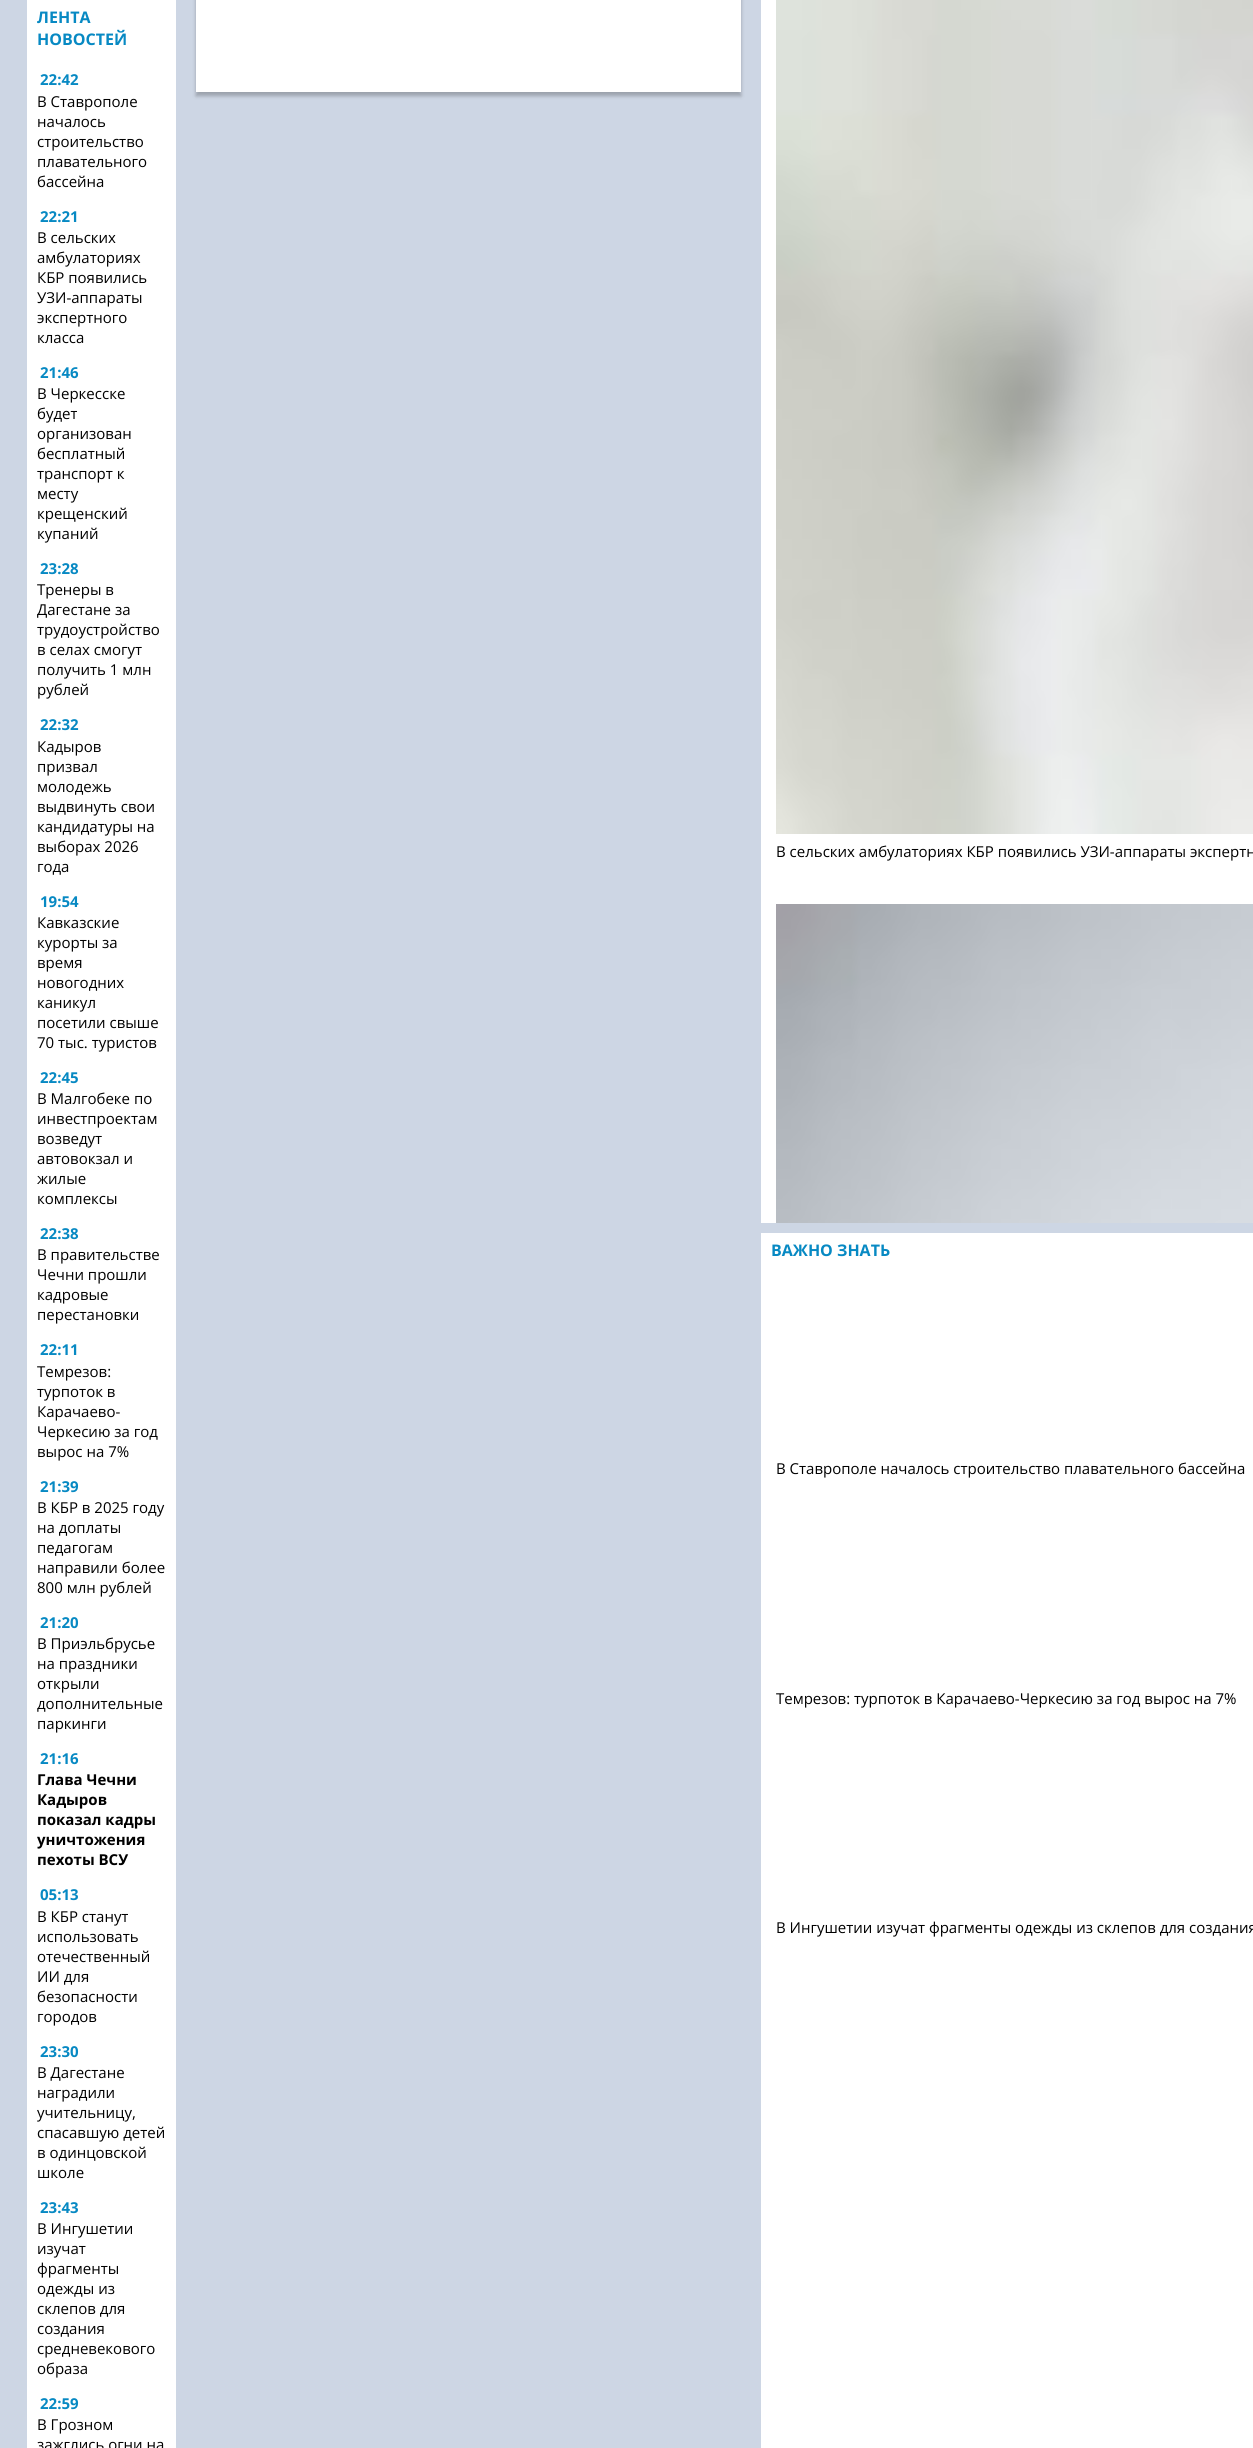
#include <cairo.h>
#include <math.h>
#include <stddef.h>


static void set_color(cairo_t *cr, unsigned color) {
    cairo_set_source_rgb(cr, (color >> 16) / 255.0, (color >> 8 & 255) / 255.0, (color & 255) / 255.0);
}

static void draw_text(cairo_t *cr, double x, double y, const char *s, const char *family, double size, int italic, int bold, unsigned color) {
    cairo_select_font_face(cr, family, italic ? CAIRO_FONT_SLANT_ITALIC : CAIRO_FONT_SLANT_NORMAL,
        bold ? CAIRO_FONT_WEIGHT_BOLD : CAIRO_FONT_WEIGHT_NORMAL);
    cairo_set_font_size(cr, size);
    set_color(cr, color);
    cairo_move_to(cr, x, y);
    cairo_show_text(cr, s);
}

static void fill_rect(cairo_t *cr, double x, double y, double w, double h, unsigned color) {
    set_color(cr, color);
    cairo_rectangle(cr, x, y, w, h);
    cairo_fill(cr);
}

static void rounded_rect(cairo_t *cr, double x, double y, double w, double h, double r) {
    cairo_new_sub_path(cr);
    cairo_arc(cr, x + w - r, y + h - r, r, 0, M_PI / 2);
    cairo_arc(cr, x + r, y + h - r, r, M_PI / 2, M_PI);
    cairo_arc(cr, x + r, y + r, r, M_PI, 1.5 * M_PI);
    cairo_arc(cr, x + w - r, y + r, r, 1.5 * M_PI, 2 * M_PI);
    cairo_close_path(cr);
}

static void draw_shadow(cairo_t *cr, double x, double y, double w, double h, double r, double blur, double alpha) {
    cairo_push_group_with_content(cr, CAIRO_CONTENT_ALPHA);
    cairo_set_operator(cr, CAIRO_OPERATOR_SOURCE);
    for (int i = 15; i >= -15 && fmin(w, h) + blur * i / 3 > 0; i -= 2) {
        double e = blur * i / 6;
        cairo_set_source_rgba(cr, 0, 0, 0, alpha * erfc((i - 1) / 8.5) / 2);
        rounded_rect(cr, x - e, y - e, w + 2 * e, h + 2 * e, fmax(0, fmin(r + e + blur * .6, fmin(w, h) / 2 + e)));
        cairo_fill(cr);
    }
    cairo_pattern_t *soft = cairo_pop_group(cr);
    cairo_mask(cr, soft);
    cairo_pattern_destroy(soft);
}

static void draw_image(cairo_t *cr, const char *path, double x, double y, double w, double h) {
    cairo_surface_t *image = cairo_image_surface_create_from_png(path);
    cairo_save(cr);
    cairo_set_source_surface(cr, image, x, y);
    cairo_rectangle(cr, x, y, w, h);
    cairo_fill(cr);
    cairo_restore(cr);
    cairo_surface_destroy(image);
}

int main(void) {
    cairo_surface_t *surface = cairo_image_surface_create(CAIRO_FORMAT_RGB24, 1253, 2448);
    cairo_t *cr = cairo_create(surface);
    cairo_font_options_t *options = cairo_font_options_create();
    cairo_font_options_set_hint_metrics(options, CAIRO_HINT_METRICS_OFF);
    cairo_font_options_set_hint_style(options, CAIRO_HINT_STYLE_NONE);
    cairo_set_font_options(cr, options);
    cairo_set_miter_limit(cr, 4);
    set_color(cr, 0xCDD6E4);
    cairo_paint(cr);
    fill_rect(cr, 27, 0, 149, 2448, 0xFFFFFF);
    draw_text(cr, 37, 23, "ЛЕНТА", "Open Sans", 16, 0, 1, 0x0789C3);
    draw_text(cr, 37, 45, "НОВОСТЕЙ", "Open Sans", 16, 0, 1, 0x0789C3);
    draw_text(cr, 40, 85, "22:42", "Open Sans", 15, 0, 1, 0x0789C3);
    draw_text(cr, 37, 107, "В Ставрополе", "Open Sans", 15, 0, 0, 0x000000);
    draw_text(cr, 37, 127, "началось", "Open Sans", 15, 0, 0, 0x000000);
    draw_text(cr, 37, 147, "строительство", "Open Sans", 15, 0, 0, 0x000000);
    draw_text(cr, 37, 167, "плавательного", "Open Sans", 15, 0, 0, 0x000000);
    draw_text(cr, 37, 187, "бассейна", "Open Sans", 15, 0, 0, 0x000000);
    draw_text(cr, 40, 222, "22:21", "Open Sans", 15, 0, 1, 0x0789C3);
    draw_text(cr, 37, 243, "В сельских", "Open Sans", 15, 0, 0, 0x000000);
    draw_text(cr, 37, 263, "амбулаториях", "Open Sans", 15, 0, 0, 0x000000);
    draw_text(cr, 37, 283, "КБР появились", "Open Sans", 15, 0, 0, 0x000000);
    draw_text(cr, 37, 303, "УЗИ-аппараты", "Open Sans", 15, 0, 0, 0x000000);
    draw_text(cr, 37, 323, "экспертного", "Open Sans", 15, 0, 0, 0x000000);
    draw_text(cr, 37, 343, "класса", "Open Sans", 15, 0, 0, 0x000000);
    draw_text(cr, 40, 378, "21:46", "Open Sans", 15, 0, 1, 0x0789C3);
    draw_text(cr, 37, 399, "В Черкесске", "Open Sans", 15, 0, 0, 0x000000);
    draw_text(cr, 37, 419, "будет", "Open Sans", 15, 0, 0, 0x000000);
    draw_text(cr, 37, 439, "организован", "Open Sans", 15, 0, 0, 0x000000);
    draw_text(cr, 37, 459, "бесплатный", "Open Sans", 15, 0, 0, 0x000000);
    draw_text(cr, 37, 479, "транспорт к", "Open Sans", 15, 0, 0, 0x000000);
    draw_text(cr, 37, 499, "месту", "Open Sans", 15, 0, 0, 0x000000);
    draw_text(cr, 37, 519, "крещенский", "Open Sans", 15, 0, 0, 0x000000);
    draw_text(cr, 37, 539, "купаний", "Open Sans", 15, 0, 0, 0x000000);
    draw_text(cr, 40, 574, "23:28", "Open Sans", 15, 0, 1, 0x0789C3);
    draw_text(cr, 37, 595, "Тренеры в", "Open Sans", 15, 0, 0, 0x000000);
    draw_text(cr, 37, 615, "Дагестане за", "Open Sans", 15, 0, 0, 0x000000);
    draw_text(cr, 37, 635, "трудоустройство", "Open Sans", 15, 0, 0, 0x000000);
    draw_text(cr, 37, 655, "в селах смогут", "Open Sans", 15, 0, 0, 0x000000);
    draw_text(cr, 37, 675, "получить 1 млн", "Open Sans", 15, 0, 0, 0x000000);
    draw_text(cr, 37, 695, "рублей", "Open Sans", 15, 0, 0, 0x000000);
    draw_text(cr, 40, 730, "22:32", "Open Sans", 15, 0, 1, 0x0789C3);
    draw_text(cr, 37, 752, "Кадыров", "Open Sans", 15, 0, 0, 0x000000);
    draw_text(cr, 37, 772, "призвал", "Open Sans", 15, 0, 0, 0x000000);
    draw_text(cr, 37, 792, "молодежь", "Open Sans", 15, 0, 0, 0x000000);
    draw_text(cr, 37, 812, "выдвинуть свои", "Open Sans", 15, 0, 0, 0x000000);
    draw_text(cr, 37, 832, "кандидатуры на", "Open Sans", 15, 0, 0, 0x000000);
    draw_text(cr, 37, 852, "выборах 2026", "Open Sans", 15, 0, 0, 0x000000);
    draw_text(cr, 37, 872, "года", "Open Sans", 15, 0, 0, 0x000000);
    draw_text(cr, 40, 907, "19:54", "Open Sans", 15, 0, 1, 0x0789C3);
    draw_text(cr, 37, 928, "Кавказские", "Open Sans", 15, 0, 0, 0x000000);
    draw_text(cr, 37, 948, "курорты за", "Open Sans", 15, 0, 0, 0x000000);
    draw_text(cr, 37, 968, "время", "Open Sans", 15, 0, 0, 0x000000);
    draw_text(cr, 37, 988, "новогодних", "Open Sans", 15, 0, 0, 0x000000);
    draw_text(cr, 37, 1008, "каникул", "Open Sans", 15, 0, 0, 0x000000);
    draw_text(cr, 37, 1028, "посетили свыше", "Open Sans", 15, 0, 0, 0x000000);
    draw_text(cr, 37, 1048, "70 тыс. туристов", "Open Sans", 15, 0, 0, 0x000000);
    draw_text(cr, 40, 1083, "22:45", "Open Sans", 15, 0, 1, 0x0789C3);
    draw_text(cr, 37, 1104, "В Малгобеке по", "Open Sans", 15, 0, 0, 0x000000);
    draw_text(cr, 37, 1124, "инвестпроектам", "Open Sans", 15, 0, 0, 0x000000);
    draw_text(cr, 37, 1144, "возведут", "Open Sans", 15, 0, 0, 0x000000);
    draw_text(cr, 37, 1164, "автовокзал и", "Open Sans", 15, 0, 0, 0x000000);
    draw_text(cr, 37, 1184, "жилые", "Open Sans", 15, 0, 0, 0x000000);
    draw_text(cr, 37, 1204, "комплексы", "Open Sans", 15, 0, 0, 0x000000);
    draw_text(cr, 40, 1239, "22:38", "Open Sans", 15, 0, 1, 0x0789C3);
    draw_text(cr, 37, 1260, "В правительстве", "Open Sans", 15, 0, 0, 0x000000);
    draw_text(cr, 37, 1280, "Чечни прошли", "Open Sans", 15, 0, 0, 0x000000);
    draw_text(cr, 37, 1300, "кадровые", "Open Sans", 15, 0, 0, 0x000000);
    draw_text(cr, 37, 1320, "перестановки", "Open Sans", 15, 0, 0, 0x000000);
    draw_text(cr, 40, 1355, "22:11", "Open Sans", 15, 0, 1, 0x0789C3);
    draw_text(cr, 37, 1377, "Темрезов:", "Open Sans", 15, 0, 0, 0x000000);
    draw_text(cr, 37, 1397, "турпоток в", "Open Sans", 15, 0, 0, 0x000000);
    draw_text(cr, 37, 1417, "Карачаево-", "Open Sans", 15, 0, 0, 0x000000);
    draw_text(cr, 37, 1437, "Черкесию за год", "Open Sans", 15, 0, 0, 0x000000);
    draw_text(cr, 37, 1457, "вырос на 7%", "Open Sans", 15, 0, 0, 0x000000);
    draw_text(cr, 40, 1492, "21:39", "Open Sans", 15, 0, 1, 0x0789C3);
    draw_text(cr, 37, 1513, "В КБР в 2025 году", "Open Sans", 15, 0, 0, 0x000000);
    draw_text(cr, 37, 1533, "на доплаты", "Open Sans", 15, 0, 0, 0x000000);
    draw_text(cr, 37, 1553, "педагогам", "Open Sans", 15, 0, 0, 0x000000);
    draw_text(cr, 37, 1573, "направили более", "Open Sans", 15, 0, 0, 0x000000);
    draw_text(cr, 37, 1593, "800 млн рублей", "Open Sans", 15, 0, 0, 0x000000);
    draw_text(cr, 40, 1628, "21:20", "Open Sans", 15, 0, 1, 0x0789C3);
    draw_text(cr, 37, 1649, "В Приэльбрусье", "Open Sans", 15, 0, 0, 0x000000);
    draw_text(cr, 37, 1669, "на праздники", "Open Sans", 15, 0, 0, 0x000000);
    draw_text(cr, 37, 1689, "открыли", "Open Sans", 15, 0, 0, 0x000000);
    draw_text(cr, 37, 1709, "дополнительные", "Open Sans", 15, 0, 0, 0x000000);
    draw_text(cr, 37, 1729, "паркинги", "Open Sans", 15, 0, 0, 0x000000);
    draw_text(cr, 40, 1764, "21:16", "Open Sans", 15, 0, 1, 0x0789C3);
    draw_text(cr, 37, 1785, "Глава Чечни", "Open Sans", 15, 0, 1, 0x000000);
    draw_text(cr, 37, 1805, "Кадыров", "Open Sans", 15, 0, 1, 0x000000);
    draw_text(cr, 37, 1825, "показал кадры", "Open Sans", 15, 0, 1, 0x000000);
    draw_text(cr, 37, 1845, "уничтожения", "Open Sans", 15, 0, 1, 0x000000);
    draw_text(cr, 37, 1865, "пехоты ВСУ", "Open Sans", 15, 0, 1, 0x000000);
    draw_text(cr, 40, 1900, "05:13", "Open Sans", 15, 0, 1, 0x0789C3);
    draw_text(cr, 37, 1922, "В КБР станут", "Open Sans", 15, 0, 0, 0x000000);
    draw_text(cr, 37, 1942, "использовать", "Open Sans", 15, 0, 0, 0x000000);
    draw_text(cr, 37, 1962, "отечественный", "Open Sans", 15, 0, 0, 0x000000);
    draw_text(cr, 37, 1982, "ИИ для", "Open Sans", 15, 0, 0, 0x000000);
    draw_text(cr, 37, 2002, "безопасности", "Open Sans", 15, 0, 0, 0x000000);
    draw_text(cr, 37, 2022, "городов", "Open Sans", 15, 0, 0, 0x000000);
    draw_text(cr, 40, 2057, "23:30", "Open Sans", 15, 0, 1, 0x0789C3);
    draw_text(cr, 37, 2078, "В Дагестане", "Open Sans", 15, 0, 0, 0x000000);
    draw_text(cr, 37, 2098, "наградили", "Open Sans", 15, 0, 0, 0x000000);
    draw_text(cr, 37, 2118, "учительницу,", "Open Sans", 15, 0, 0, 0x000000);
    draw_text(cr, 37, 2138, "спасавшую детей", "Open Sans", 15, 0, 0, 0x000000);
    draw_text(cr, 37, 2158, "в одинцовской", "Open Sans", 15, 0, 0, 0x000000);
    draw_text(cr, 37, 2178, "школе", "Open Sans", 15, 0, 0, 0x000000);
    draw_text(cr, 40, 2213, "23:43", "Open Sans", 15, 0, 1, 0x0789C3);
    draw_text(cr, 37, 2234, "В Ингушетии", "Open Sans", 15, 0, 0, 0x000000);
    draw_text(cr, 37, 2254, "изучат", "Open Sans", 15, 0, 0, 0x000000);
    draw_text(cr, 37, 2274, "фрагменты", "Open Sans", 15, 0, 0, 0x000000);
    draw_text(cr, 37, 2294, "одежды из", "Open Sans", 15, 0, 0, 0x000000);
    draw_text(cr, 37, 2314, "склепов для", "Open Sans", 15, 0, 0, 0x000000);
    draw_text(cr, 37, 2334, "создания", "Open Sans", 15, 0, 0, 0x000000);
    draw_text(cr, 37, 2354, "средневекового", "Open Sans", 15, 0, 0, 0x000000);
    draw_text(cr, 37, 2374, "образа", "Open Sans", 15, 0, 0, 0x000000);
    draw_text(cr, 40, 2409, "22:59", "Open Sans", 15, 0, 1, 0x0789C3);
    draw_text(cr, 37, 2430, "В Грозном", "Open Sans", 15, 0, 0, 0x000000);
    draw_text(cr, 37, 2450, "зажглись огни на", "Open Sans", 15, 0, 0, 0x000000);
    set_color(cr, 0x000000);
    draw_shadow(cr, 196, -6, 545, 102, 0, 2, 0.25);
    fill_rect(cr, 196, 0, 545, 92, 0xFFFFFF);
    fill_rect(cr, 761, 0, 492, 1223, 0xFFFFFF);
    draw_image(cr, "assets/img1.png", 776, 0, 477, 834);
    draw_text(cr, 776, 857, "В сельских амбулаториях КБР появились УЗИ-аппараты экспертн", "Open Sans", 15, 0, 0, 0x000000);
    draw_image(cr, "assets/img2.png", 776, 904, 477, 319);
    fill_rect(cr, 761, 1233, 492, 1215, 0xFFFFFF);
    draw_text(cr, 771, 1256, "ВАЖНО ЗНАТЬ", "Open Sans", 16, 0, 1, 0x0789C3);
    draw_text(cr, 776, 1474, "В Ставрополе началось строительство плавательного бассейна", "Open Sans", 15, 0, 0, 0x000000);
    draw_text(cr, 776, 1704, "Темрезов: турпоток в Карачаево-Черкесию за год вырос на 7%", "Open Sans", 15, 0, 0, 0x000000);
    draw_text(cr, 776, 1933, "В Ингушетии изучат фрагменты одежды из склепов для создания", "Open Sans", 15, 0, 0, 0x000000);
    cairo_surface_write_to_png(surface, "output.png");
    cairo_font_options_destroy(options);
    cairo_destroy(cr);
    cairo_surface_destroy(surface);
    return 0;
}
